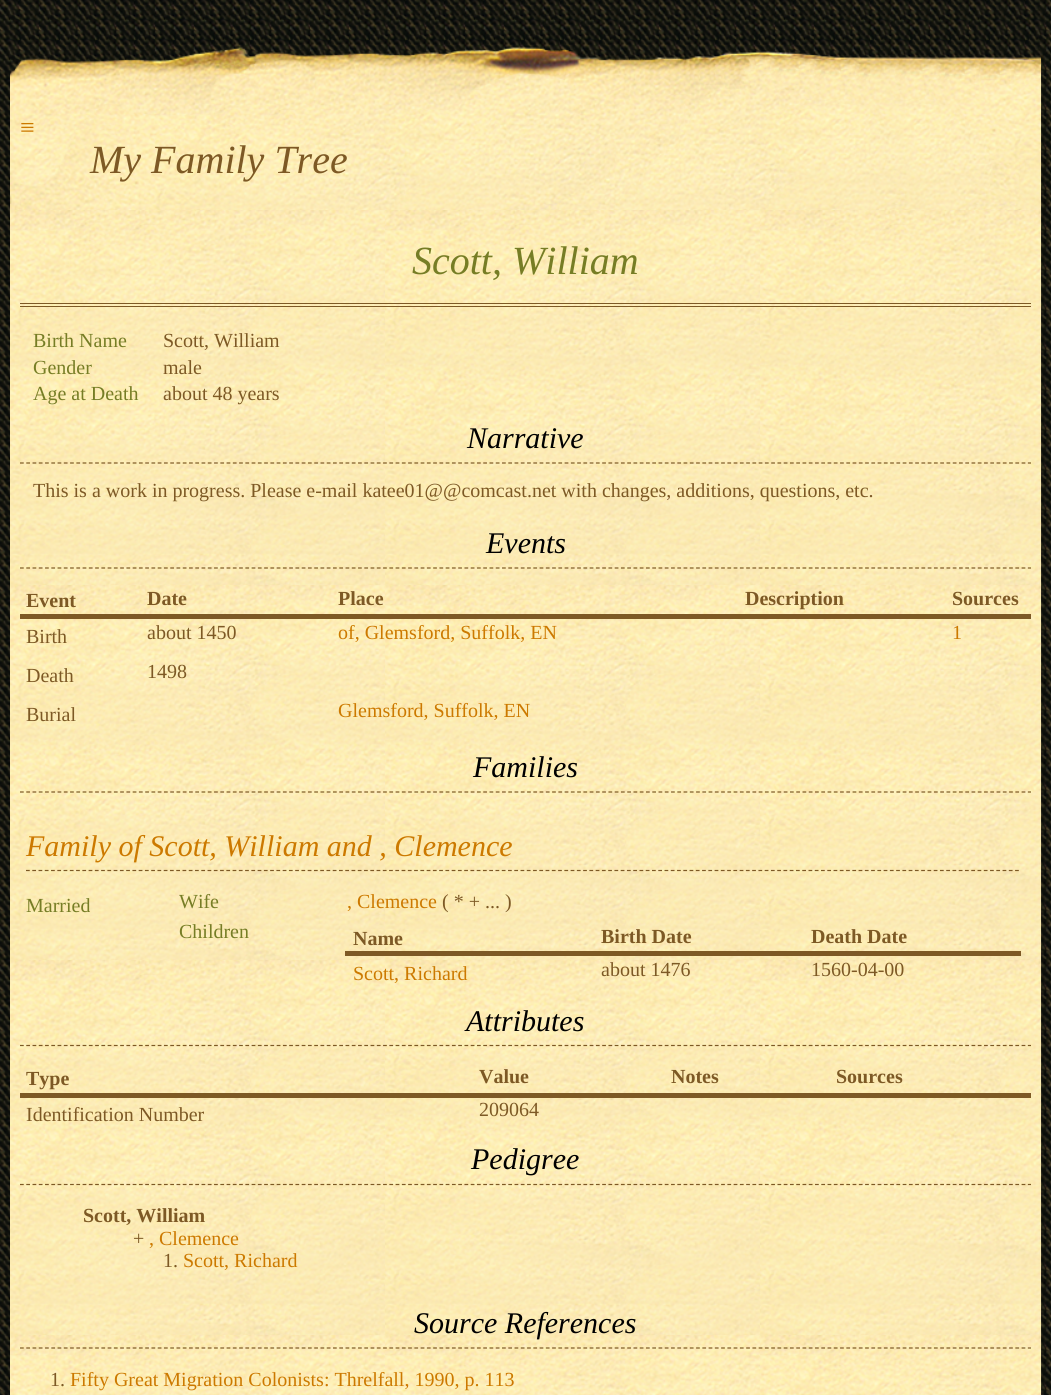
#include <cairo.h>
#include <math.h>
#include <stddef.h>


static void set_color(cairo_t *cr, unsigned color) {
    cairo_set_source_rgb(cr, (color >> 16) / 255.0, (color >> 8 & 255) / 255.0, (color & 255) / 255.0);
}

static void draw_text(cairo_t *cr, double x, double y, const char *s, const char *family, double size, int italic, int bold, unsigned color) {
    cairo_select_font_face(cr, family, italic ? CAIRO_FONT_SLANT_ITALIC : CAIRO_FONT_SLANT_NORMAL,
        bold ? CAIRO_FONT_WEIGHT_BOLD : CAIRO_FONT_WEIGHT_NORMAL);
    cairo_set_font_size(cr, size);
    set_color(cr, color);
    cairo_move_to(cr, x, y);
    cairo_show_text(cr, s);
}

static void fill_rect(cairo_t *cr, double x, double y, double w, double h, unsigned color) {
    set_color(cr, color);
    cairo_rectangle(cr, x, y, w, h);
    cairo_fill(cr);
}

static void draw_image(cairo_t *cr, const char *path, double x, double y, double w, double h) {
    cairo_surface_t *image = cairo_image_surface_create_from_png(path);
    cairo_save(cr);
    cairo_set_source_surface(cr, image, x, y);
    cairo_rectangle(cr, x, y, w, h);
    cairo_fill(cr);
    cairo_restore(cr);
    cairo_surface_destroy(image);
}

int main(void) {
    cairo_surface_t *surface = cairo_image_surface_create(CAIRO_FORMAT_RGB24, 1051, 1395);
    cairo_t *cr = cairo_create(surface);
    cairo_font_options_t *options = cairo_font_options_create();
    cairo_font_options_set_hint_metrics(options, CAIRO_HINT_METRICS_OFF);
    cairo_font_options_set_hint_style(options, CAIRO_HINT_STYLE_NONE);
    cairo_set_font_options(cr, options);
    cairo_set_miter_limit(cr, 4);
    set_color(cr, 0xFFFFFF);
    cairo_paint(cr);
    draw_image(cr, "assets/img1.png", 0, 0, 1051, 1395);
    draw_image(cr, "assets/img2.png", 10, 47, 1032, 163);
    draw_text(cr, 20, 136, "≡", "Liberation Serif", 26, 0, 0, 0xCC7900);
    draw_text(cr, 90, 173, "My Family Tree", "Liberation Serif", 40, 1, 0, 0x7D5925);
    draw_image(cr, "assets/img3.png", 10, 210, 1032, 1185);
    fill_rect(cr, 20, 303, 1011, 1, 0x7D5925);
    fill_rect(cr, 20, 306, 1011, 1, 0x7D5925);
    draw_text(cr, 412, 274, "Scott, William", "Liberation Serif", 40, 1, 0, 0x767D25);
    draw_text(cr, 33, 347, "Birth Name", "Liberation Serif", 20, 0, 0, 0x767D25);
    draw_text(cr, 163, 347, "Scott, William", "Liberation Serif", 20, 0, 0, 0x7D5925);
    draw_text(cr, 33, 374, "Gender", "Liberation Serif", 20, 0, 0, 0x767D25);
    draw_text(cr, 163, 374, "male", "Liberation Serif", 20, 0, 0, 0x7D5925);
    draw_text(cr, 33, 400, "Age at Death", "Liberation Serif", 20, 0, 0, 0x767D25);
    draw_text(cr, 163, 400, "about 48 years", "Liberation Serif", 20, 0, 0, 0x7D5925);
    cairo_new_path(cr);
    cairo_move_to(cr, 20, 463);
    cairo_line_to(cr, 1031, 463);
    cairo_set_line_width(cr, 1.2);
    cairo_set_dash(cr, (double[]){3.75, 2.51}, 2, 0);
    cairo_stroke(cr);
    draw_text(cr, 467, 448, "Narrative", "Liberation Serif", 30, 1, 0, 0x000000);
    draw_text(cr, 33, 497, "This is a work in progress. Please e-mail katee01@@comcast.net with changes, additions, questions, etc.", "Liberation Serif", 20, 0, 0, 0x7D5925);
    cairo_new_path(cr);
    cairo_move_to(cr, 20, 568);
    cairo_line_to(cr, 1031, 568);
    cairo_stroke(cr);
    draw_text(cr, 486, 553, "Events", "Liberation Serif", 30, 1, 0, 0x000000);
    draw_text(cr, 26, 607, "Event", "Liberation Serif", 20, 0, 1, 0x7D5925);
    draw_text(cr, 147, 605, "Date", "Liberation Serif", 20, 0, 1, 0x7D5925);
    draw_text(cr, 338, 605, "Place", "Liberation Serif", 20, 0, 1, 0x7D5925);
    draw_text(cr, 745, 605, "Description", "Liberation Serif", 20, 0, 1, 0x7D5925);
    fill_rect(cr, 20, 614, 1011, 5, 0x7D5925);
    draw_text(cr, 952, 605, "Sources", "Liberation Serif", 20, 0, 1, 0x7D5925);
    draw_text(cr, 26, 643, "Birth", "Liberation Serif", 20, 0, 0, 0x7D5925);
    draw_text(cr, 147, 639, "about 1450", "Liberation Serif", 20, 0, 0, 0x7D5925);
    draw_text(cr, 338, 639, "of, Glemsford, Suffolk, EN", "Liberation Serif", 20, 0, 0, 0xCC7900);
    draw_text(cr, 952, 639, "1", "Liberation Serif", 20, 0, 0, 0xCC7900);
    draw_text(cr, 26, 682, "Death", "Liberation Serif", 20, 0, 0, 0x7D5925);
    draw_text(cr, 147, 678, "1498", "Liberation Serif", 20, 0, 0, 0x7D5925);
    draw_text(cr, 26, 721, "Burial", "Liberation Serif", 20, 0, 0, 0x7D5925);
    draw_text(cr, 338, 717, "Glemsford, Suffolk, EN", "Liberation Serif", 20, 0, 0, 0xCC7900);
    cairo_new_path(cr);
    cairo_move_to(cr, 20, 792);
    cairo_line_to(cr, 1031, 792);
    set_color(cr, 0x7D5925);
    cairo_stroke(cr);
    draw_text(cr, 473, 777, "Families", "Liberation Serif", 30, 1, 0, 0x000000);
    cairo_new_path(cr);
    cairo_move_to(cr, 26, 870.5);
    cairo_line_to(cr, 1019, 870.5);
    set_color(cr, 0x7D5925);
    cairo_stroke(cr);
    draw_text(cr, 26, 856, "Family of Scott, William and , Clemence", "Liberation Serif", 30, 1, 0, 0xCC7900);
    draw_text(cr, 26, 912, "Married", "Liberation Serif", 20, 0, 0, 0x767D25);
    draw_text(cr, 179, 908, "Wife", "Liberation Serif", 20, 0, 0, 0x767D25);
    draw_text(cr, 347, 908, ", Clemence", "Liberation Serif", 20, 0, 0, 0xCC7900);
    draw_text(cr, 442, 908, "( * + ... )", "Liberation Serif", 20, 0, 0, 0x7D5925);
    draw_text(cr, 179, 938, "Children", "Liberation Serif", 20, 0, 0, 0x767D25);
    draw_text(cr, 353, 945, "Name", "Liberation Serif", 20, 0, 1, 0x7D5925);
    draw_text(cr, 601, 943, "Birth Date", "Liberation Serif", 20, 0, 1, 0x7D5925);
    fill_rect(cr, 345, 951, 676, 5, 0x7D5925);
    draw_text(cr, 811, 943, "Death Date", "Liberation Serif", 20, 0, 1, 0x7D5925);
    draw_text(cr, 353, 980, "Scott, Richard", "Liberation Serif", 20, 0, 0, 0xCC7900);
    draw_text(cr, 601, 976, "about 1476", "Liberation Serif", 20, 0, 0, 0x7D5925);
    draw_text(cr, 811, 976, "1560-04-00", "Liberation Serif", 20, 0, 0, 0x7D5925);
    cairo_new_path(cr);
    cairo_move_to(cr, 20, 1045.5);
    cairo_line_to(cr, 1031, 1045.5);
    cairo_stroke(cr);
    draw_text(cr, 466, 1031, "Attributes", "Liberation Serif", 30, 1, 0, 0x000000);
    draw_text(cr, 26, 1085, "Type", "Liberation Serif", 20, 0, 1, 0x7D5925);
    draw_text(cr, 479, 1083, "Value", "Liberation Serif", 20, 0, 1, 0x7D5925);
    draw_text(cr, 671, 1083, "Notes", "Liberation Serif", 20, 0, 1, 0x7D5925);
    fill_rect(cr, 20, 1093, 1011, 5, 0x7D5925);
    draw_text(cr, 836, 1083, "Sources", "Liberation Serif", 20, 0, 1, 0x7D5925);
    draw_text(cr, 26, 1121, "Identification Number", "Liberation Serif", 20, 0, 0, 0x7D5925);
    draw_text(cr, 479, 1116, "209064", "Liberation Serif", 20, 0, 0, 0x7D5925);
    cairo_new_path(cr);
    cairo_move_to(cr, 20, 1184.5);
    cairo_line_to(cr, 1031, 1184.5);
    cairo_stroke(cr);
    draw_text(cr, 471, 1169, "Pedigree", "Liberation Serif", 30, 1, 0, 0x000000);
    draw_text(cr, 83, 1222, "Scott, William", "Liberation Serif", 20, 0, 1, 0x7D5925);
    draw_text(cr, 133, 1245, "+", "Liberation Serif", 20, 0, 0, 0x7D5925);
    draw_text(cr, 149, 1245, ", Clemence", "Liberation Serif", 20, 0, 0, 0xCC7900);
    draw_text(cr, 163, 1267, "1.", "Liberation Serif", 20, 0, 0, 0x7D5925);
    draw_text(cr, 183, 1267, "Scott, Richard", "Liberation Serif", 20, 0, 0, 0xCC7900);
    cairo_new_path(cr);
    cairo_move_to(cr, 20, 1348);
    cairo_line_to(cr, 1031, 1348);
    set_color(cr, 0x7D5925);
    cairo_stroke(cr);
    draw_text(cr, 414, 1333, "Source References", "Liberation Serif", 30, 1, 0, 0x000000);
    draw_text(cr, 50, 1386, "1.", "Liberation Serif", 20, 0, 0, 0x7D5925);
    draw_text(cr, 70, 1386, "Fifty Great Migration Colonists: Threlfall, 1990, p. 113", "Liberation Serif", 20, 0, 0, 0xCC7900);
    cairo_surface_write_to_png(surface, "output.png");
    cairo_font_options_destroy(options);
    cairo_destroy(cr);
    cairo_surface_destroy(surface);
    return 0;
}
